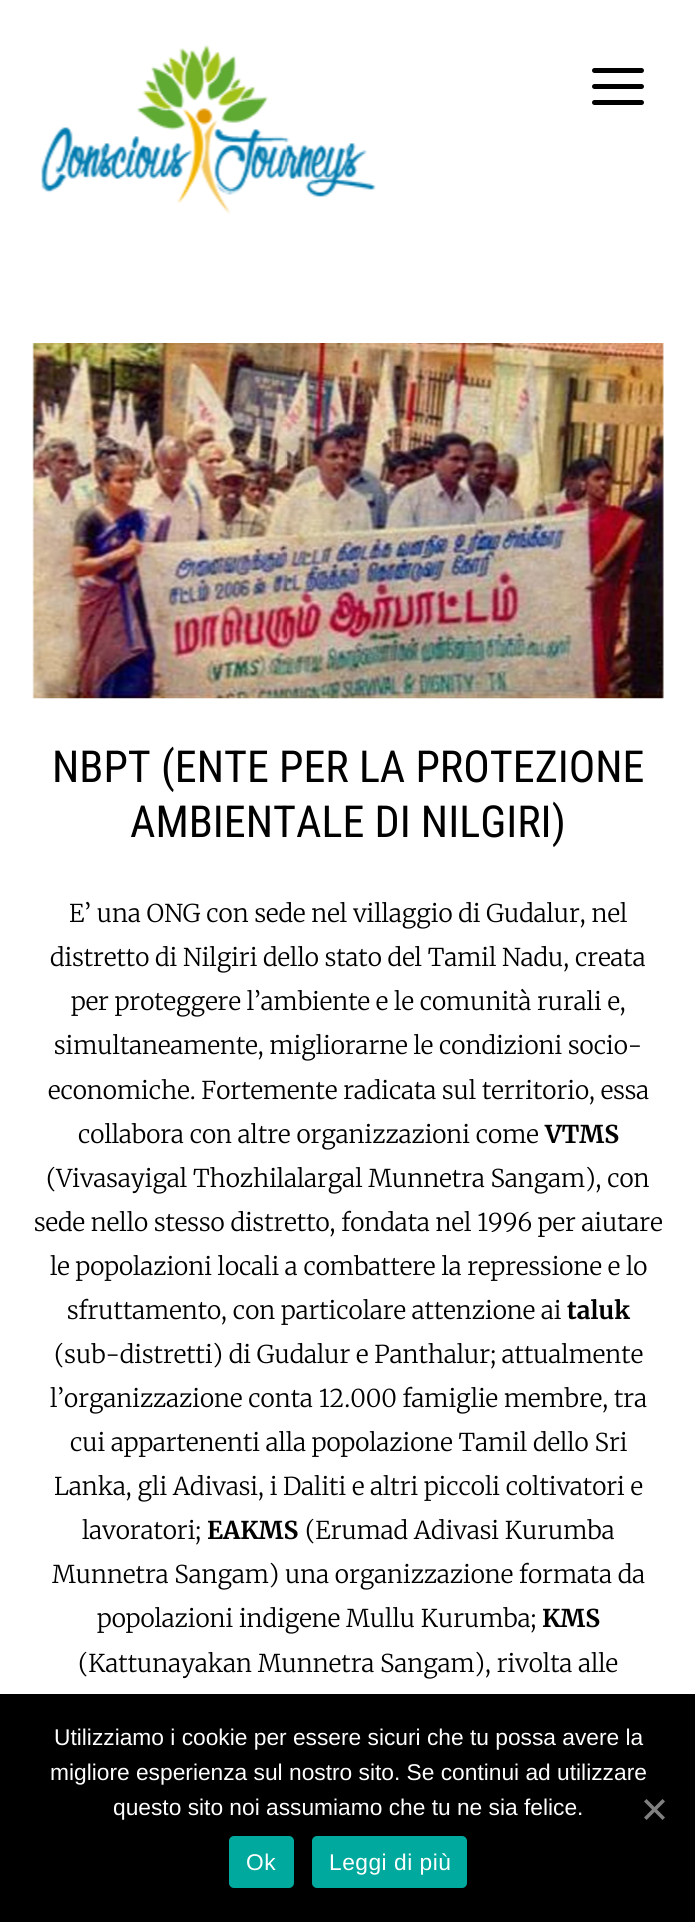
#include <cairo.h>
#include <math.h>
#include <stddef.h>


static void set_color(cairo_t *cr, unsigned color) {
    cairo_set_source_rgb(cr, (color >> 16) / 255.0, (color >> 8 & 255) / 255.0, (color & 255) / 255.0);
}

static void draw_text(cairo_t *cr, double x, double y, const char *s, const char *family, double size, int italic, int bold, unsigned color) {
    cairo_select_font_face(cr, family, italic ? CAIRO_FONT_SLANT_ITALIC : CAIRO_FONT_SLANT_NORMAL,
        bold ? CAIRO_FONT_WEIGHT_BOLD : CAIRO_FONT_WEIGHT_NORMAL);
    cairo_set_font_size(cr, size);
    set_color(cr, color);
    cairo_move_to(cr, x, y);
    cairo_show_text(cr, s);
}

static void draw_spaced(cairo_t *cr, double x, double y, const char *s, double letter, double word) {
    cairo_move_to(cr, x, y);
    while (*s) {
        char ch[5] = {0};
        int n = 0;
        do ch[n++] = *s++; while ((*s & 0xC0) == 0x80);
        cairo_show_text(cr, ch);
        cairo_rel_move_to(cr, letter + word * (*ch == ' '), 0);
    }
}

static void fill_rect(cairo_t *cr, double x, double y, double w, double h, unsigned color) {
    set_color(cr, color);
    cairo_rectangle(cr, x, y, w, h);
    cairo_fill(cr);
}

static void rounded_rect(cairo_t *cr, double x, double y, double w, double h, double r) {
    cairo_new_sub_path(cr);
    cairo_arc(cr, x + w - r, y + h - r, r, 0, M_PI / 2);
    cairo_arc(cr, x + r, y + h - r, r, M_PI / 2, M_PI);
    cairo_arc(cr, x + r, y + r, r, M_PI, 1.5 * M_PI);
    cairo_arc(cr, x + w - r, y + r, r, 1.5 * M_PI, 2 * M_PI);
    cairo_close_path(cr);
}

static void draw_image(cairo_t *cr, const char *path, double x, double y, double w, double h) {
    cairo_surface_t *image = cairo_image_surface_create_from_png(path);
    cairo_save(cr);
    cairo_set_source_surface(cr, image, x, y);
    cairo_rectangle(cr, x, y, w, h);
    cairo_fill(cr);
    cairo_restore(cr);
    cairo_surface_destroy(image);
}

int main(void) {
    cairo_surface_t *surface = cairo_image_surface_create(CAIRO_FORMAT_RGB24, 695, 1922);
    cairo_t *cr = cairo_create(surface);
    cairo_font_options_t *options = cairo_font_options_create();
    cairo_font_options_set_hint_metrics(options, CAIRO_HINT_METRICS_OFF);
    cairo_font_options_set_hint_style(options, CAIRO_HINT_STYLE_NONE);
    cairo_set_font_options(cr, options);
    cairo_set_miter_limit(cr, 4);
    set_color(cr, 0xFFFFFF);
    cairo_paint(cr);
    draw_image(cr, "assets/img1.png", 41, 45, 335, 169);
    set_color(cr, 0x000000);
    rounded_rect(cr, 592, 68, 52, 5, 2.5);
    cairo_fill(cr);
    rounded_rect(cr, 592, 84, 52, 5, 2.5);
    cairo_fill(cr);
    rounded_rect(cr, 592, 100, 52, 5, 2.5);
    cairo_fill(cr);
    draw_image(cr, "assets/img2.png", 32, 343, 632, 356);
    draw_text(cr, 52, 782, "NBPT (ENTE PER LA PROTEZIONE", "Roboto Condensed", 44.1, 0, 0, 0x000000);
    draw_text(cr, 130, 837, "AMBIENTALE DI NILGIRI)", "Roboto Condensed", 44.1, 0, 0, 0x000000);
    draw_text(cr, 69, 922, "E’ una ONG con sede nel villaggio di Gudalur, nel", "Merriweather Light", 24.5, 0, 0, 0x000000);
    draw_text(cr, 50, 966, "distretto di Nilgiri dello stato del Tamil Nadu, creata", "Merriweather Light", 24.5, 0, 0, 0x000000);
    draw_text(cr, 71, 1010, "per proteggere l’ambiente e le comunità rurali e,", "Merriweather Light", 24.5, 0, 0, 0x000000);
    draw_text(cr, 54, 1054, "simultaneamente, migliorarne le condizioni socio-", "Merriweather Light", 24.5, 0, 0, 0x000000);
    draw_text(cr, 48, 1099, "economiche. Fortemente radicata sul territorio, essa", "Merriweather Light", 24.5, 0, 0, 0x000000);
    draw_text(cr, 78, 1143, "collabora con altre organizzazioni come", "Merriweather Light", 24.5, 0, 0, 0x000000);
    draw_text(cr, 545, 1143, "VTMS", "Merriweather", 24.5, 0, 1, 0x000000);
    draw_text(cr, 46, 1187, "(Vivasayigal Thozhilalargal Munnetra Sangam), con", "Merriweather Light", 24.5, 0, 0, 0x000000);
    draw_text(cr, 34, 1231, "sede nello stesso distretto, fondata nel 1996 per aiutare", "Merriweather Light", 24.5, 0, 0, 0x000000);
    draw_text(cr, 50, 1275, "le popolazioni locali a combattere la repressione e lo", "Merriweather Light", 24.5, 0, 0, 0x000000);
    draw_text(cr, 67, 1319, "sfruttamento, con particolare attenzione ai", "Merriweather Light", 24.5, 0, 0, 0x000000);
    draw_text(cr, 567, 1319, "taluk", "Merriweather", 24.5, 0, 1, 0x000000);
    draw_text(cr, 54, 1363, "(sub-distretti) di Gudalur e Panthalur; attualmente", "Merriweather Light", 24.5, 0, 0, 0x000000);
    draw_text(cr, 50, 1407, "l’organizzazione conta 12.000 famiglie membre, tra", "Merriweather Light", 24.5, 0, 0, 0x000000);
    draw_text(cr, 70, 1451, "cui appartenenti alla popolazione Tamil dello Sri", "Merriweather Light", 24.5, 0, 0, 0x000000);
    draw_text(cr, 54, 1495, "Lanka, gli Adivasi, i Daliti e altri piccoli coltivatori e", "Merriweather Light", 24.5, 0, 0, 0x000000);
    draw_text(cr, 82, 1539, "lavoratori;", "Merriweather Light", 24.5, 0, 0, 0x000000);
    draw_text(cr, 207, 1539, "EAKMS", "Merriweather", 24.5, 0, 1, 0x000000);
    draw_text(cr, 305, 1539, "(Erumad Adivasi Kurumba", "Merriweather Light", 24.5, 0, 0, 0x000000);
    draw_text(cr, 52, 1583, "Munnetra Sangam) una organizzazione formata da", "Merriweather Light", 24.5, 0, 0, 0x000000);
    draw_text(cr, 97, 1627, "popolazioni indigene Mullu Kurumba;", "Merriweather Light", 24.5, 0, 0, 0x000000);
    draw_text(cr, 542, 1627, "KMS", "Merriweather", 24.5, 0, 1, 0x000000);
    draw_text(cr, 78, 1672, "(Kattunayakan Munnetra Sangam), rivolta alle", "Merriweather Light", 24.5, 0, 0, 0x000000);
    fill_rect(cr, 0, 1694, 695, 228, 0x000000);
    draw_text(cr, 54, 1745, "Utilizziamo i cookie per essere sicuri che tu possa avere la", "Liberation Sans", 22.75, 0, 0, 0xFFFFFF);
    draw_text(cr, 50, 1780, "migliore esperienza sul nostro sito. Se continui ad utilizzare", "Liberation Sans", 22.75, 0, 0, 0xFFFFFF);
    draw_text(cr, 113, 1815, "questo sito noi assumiamo che tu ne sia felice.", "Liberation Sans", 22.75, 0, 0, 0xFFFFFF);
    set_color(cr, 0x808080);
    cairo_new_path(cr);
    cairo_move_to(cr, 662.5, 1799);
    cairo_line_to(cr, 665, 1801.5);
    cairo_line_to(cr, 646.5, 1820);
    cairo_line_to(cr, 644, 1817.5);
    cairo_close_path(cr);
    cairo_fill(cr);
    cairo_new_path(cr);
    cairo_move_to(cr, 644, 1801.5);
    cairo_line_to(cr, 646.5, 1799);
    cairo_line_to(cr, 665, 1817.5);
    cairo_line_to(cr, 662.5, 1820);
    cairo_close_path(cr);
    cairo_fill(cr);
    set_color(cr, 0x00A99D);
    rounded_rect(cr, 229, 1836, 65, 52, 5);
    cairo_fill(cr);
    set_color(cr, 0xFFFFFF);
    draw_spaced(cr, 246, 1870, "Ok", 0.5, 0);
    set_color(cr, 0x00A99D);
    rounded_rect(cr, 312, 1836, 155, 52, 5);
    cairo_fill(cr);
    set_color(cr, 0xFFFFFF);
    draw_spaced(cr, 329, 1870, "Leggi di più", 0.5, 0);
    cairo_surface_write_to_png(surface, "output.png");
    cairo_font_options_destroy(options);
    cairo_destroy(cr);
    cairo_surface_destroy(surface);
    return 0;
}
